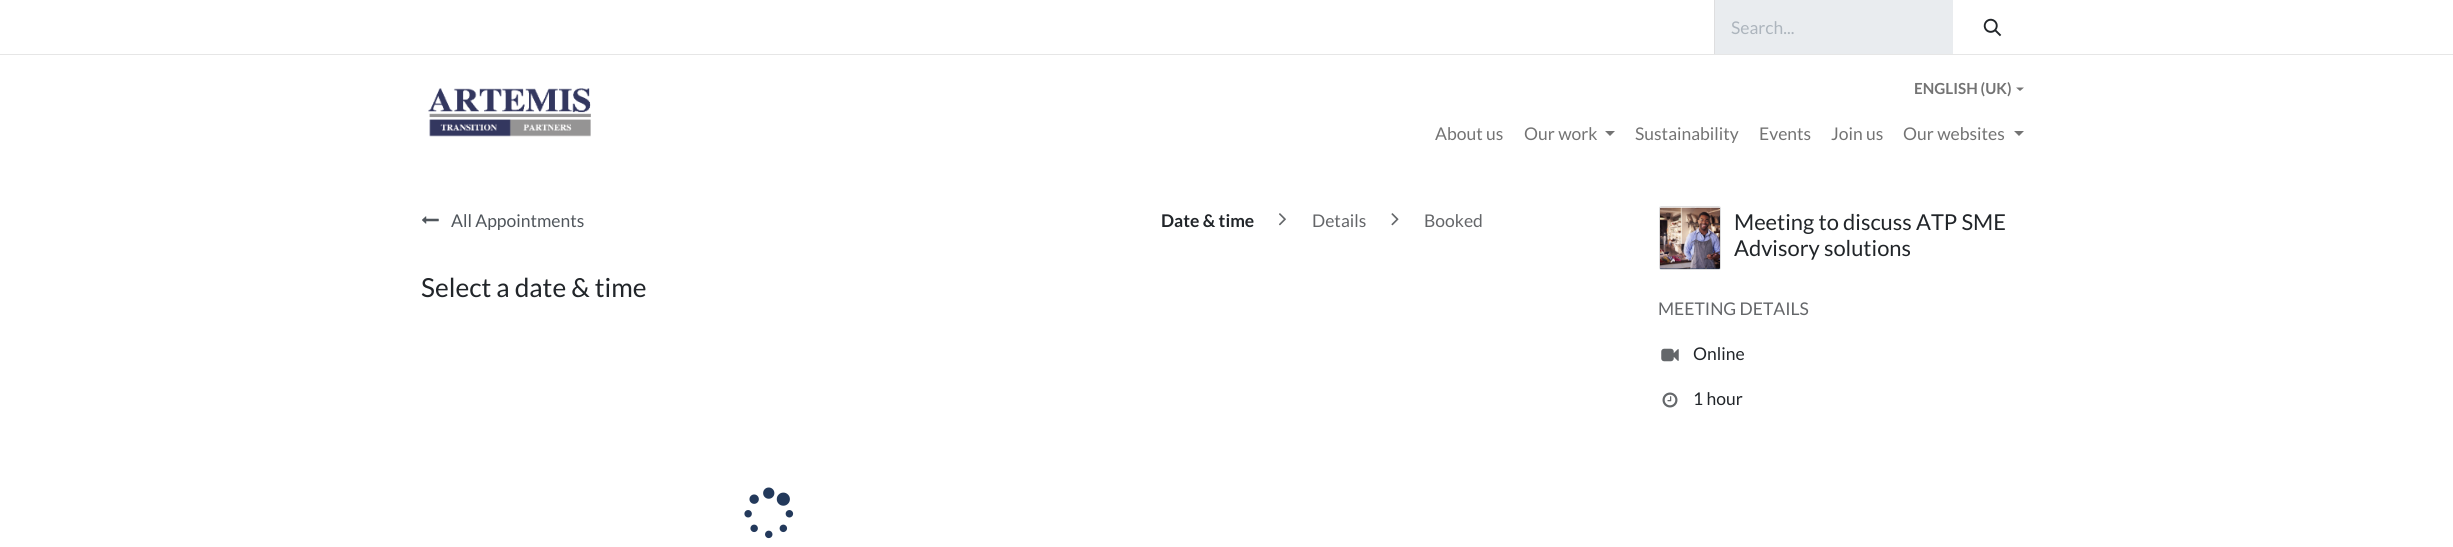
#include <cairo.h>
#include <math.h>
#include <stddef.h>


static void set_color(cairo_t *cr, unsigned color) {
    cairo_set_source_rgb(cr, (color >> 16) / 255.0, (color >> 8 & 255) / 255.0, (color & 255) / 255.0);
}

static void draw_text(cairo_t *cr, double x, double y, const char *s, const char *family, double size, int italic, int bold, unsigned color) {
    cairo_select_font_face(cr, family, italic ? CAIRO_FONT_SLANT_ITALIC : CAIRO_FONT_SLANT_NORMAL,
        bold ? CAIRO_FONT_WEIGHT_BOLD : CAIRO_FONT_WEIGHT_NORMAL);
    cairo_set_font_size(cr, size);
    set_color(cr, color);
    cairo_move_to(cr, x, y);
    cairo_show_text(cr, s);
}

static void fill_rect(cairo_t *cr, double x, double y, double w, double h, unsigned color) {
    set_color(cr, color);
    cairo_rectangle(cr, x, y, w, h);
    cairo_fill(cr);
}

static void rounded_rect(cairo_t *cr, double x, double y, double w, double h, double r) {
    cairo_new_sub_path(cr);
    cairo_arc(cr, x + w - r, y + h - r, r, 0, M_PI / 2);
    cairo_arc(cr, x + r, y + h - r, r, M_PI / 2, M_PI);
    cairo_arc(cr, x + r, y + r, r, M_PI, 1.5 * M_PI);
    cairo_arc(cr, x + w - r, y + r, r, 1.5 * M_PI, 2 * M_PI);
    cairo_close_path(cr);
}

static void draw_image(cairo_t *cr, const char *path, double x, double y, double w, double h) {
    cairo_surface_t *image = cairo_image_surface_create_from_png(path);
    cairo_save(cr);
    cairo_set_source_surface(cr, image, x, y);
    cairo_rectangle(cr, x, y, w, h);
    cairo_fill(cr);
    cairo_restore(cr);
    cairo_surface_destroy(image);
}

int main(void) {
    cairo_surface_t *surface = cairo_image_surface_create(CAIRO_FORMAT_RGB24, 2453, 547);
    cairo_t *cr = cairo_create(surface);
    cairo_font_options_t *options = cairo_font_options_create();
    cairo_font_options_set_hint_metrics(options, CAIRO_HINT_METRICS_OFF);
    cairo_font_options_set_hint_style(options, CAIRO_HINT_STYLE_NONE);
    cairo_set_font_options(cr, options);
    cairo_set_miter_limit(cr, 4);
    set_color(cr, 0xFFFFFF);
    cairo_paint(cr);
    fill_rect(cr, 0, 54, 2453, 1, 0xE6E6E6);
    fill_rect(cr, 1715, 0, 238, 54, 0xE9ECEF);
    fill_rect(cr, 1714, 0, 1, 54, 0xDEDEDF);
    draw_text(cr, 1731, 34, "Search...", "Lato", 17.5, 0, 0, 0xADB5BD);
    draw_image(cr, "assets/img1.png", 1983, 18, 19, 19);
    draw_image(cr, "assets/img2.png", 428, 88, 163, 49);
    draw_text(cr, 1914, 94, "ENGLISH (UK)", "Lato", 15.25, 0, 1, 0x737373);
    cairo_new_path(cr);
    cairo_move_to(cr, 2016, 87.5);
    cairo_line_to(cr, 2024, 87.5);
    cairo_line_to(cr, 2020, 91);
    cairo_close_path(cr);
    cairo_fill(cr);
    draw_text(cr, 1435, 140, "About us", "Lato", 17.5, 0, 0, 0x737373);
    draw_text(cr, 1524, 140, "Our work", "Lato", 17.5, 0, 0, 0x737373);
    cairo_new_path(cr);
    cairo_move_to(cr, 1605, 131);
    cairo_line_to(cr, 1615, 131);
    cairo_line_to(cr, 1610, 136);
    cairo_close_path(cr);
    cairo_fill(cr);
    draw_text(cr, 1635, 140, "Sustainability", "Lato", 17.5, 0, 0, 0x737373);
    draw_text(cr, 1759, 140, "Events", "Lato", 17.5, 0, 0, 0x737373);
    draw_text(cr, 1831, 140, "Join us", "Lato", 17.5, 0, 0, 0x737373);
    draw_text(cr, 1903, 140, "Our websites", "Lato", 17.5, 0, 0, 0x737373);
    cairo_new_path(cr);
    cairo_move_to(cr, 2014, 131);
    cairo_line_to(cr, 2024, 131);
    cairo_line_to(cr, 2019, 136);
    cairo_close_path(cr);
    cairo_fill(cr);
    draw_image(cr, "assets/img3.png", 422, 216, 17, 8);
    draw_text(cr, 451, 227, "All Appointments", "Lato", 17.5, 0, 0, 0x50565C);
    draw_text(cr, 1161, 227, "Date & time", "Lato", 17.5, 0, 1, 0x212529);
    draw_image(cr, "assets/img4.png", 1279, 213, 7, 13);
    draw_text(cr, 1312, 227, "Details", "Lato", 17.5, 0, 0, 0x646669);
    draw_image(cr, "assets/img5.png", 1391, 213, 8, 13);
    draw_text(cr, 1424, 227, "Booked", "Lato", 17.5, 0, 0, 0x646669);
    draw_text(cr, 421, 297, "Select a date & time", "Lato", 26.25, 0, 0, 0x212529);
    draw_image(cr, "assets/img6.png", 744, 487, 50, 52);
    rounded_rect(cr, 1659.5, 206.5, 61, 63, 2);
    set_color(cr, 0xDEDEDF);
    cairo_set_line_width(cr, 1);
    cairo_stroke(cr);
    set_color(cr, 0x23395B);
    rounded_rect(cr, 1660, 208, 60, 61, 1);
    cairo_fill(cr);
    draw_image(cr, "assets/img7.png", 1660, 207, 60, 62);
    draw_text(cr, 1734, 230, "Meeting to discuss ATP SME", "Lato", 21.9, 0, 0, 0x212529);
    draw_text(cr, 1734, 256, "Advisory solutions", "Lato", 21.9, 0, 0, 0x212529);
    draw_text(cr, 1658, 315, "MEETING DETAILS", "Lato", 17.5, 0, 0, 0x646669);
    draw_image(cr, "assets/img8.png", 1661, 348, 18, 14);
    draw_text(cr, 1693, 360, "Online", "Lato", 17.5, 0, 0, 0x212529);
    draw_image(cr, "assets/img9.png", 1662, 392, 16, 16);
    draw_text(cr, 1693, 405, "1 hour", "Lato", 17.5, 0, 0, 0x212529);
    cairo_surface_write_to_png(surface, "output.png");
    cairo_font_options_destroy(options);
    cairo_destroy(cr);
    cairo_surface_destroy(surface);
    return 0;
}
